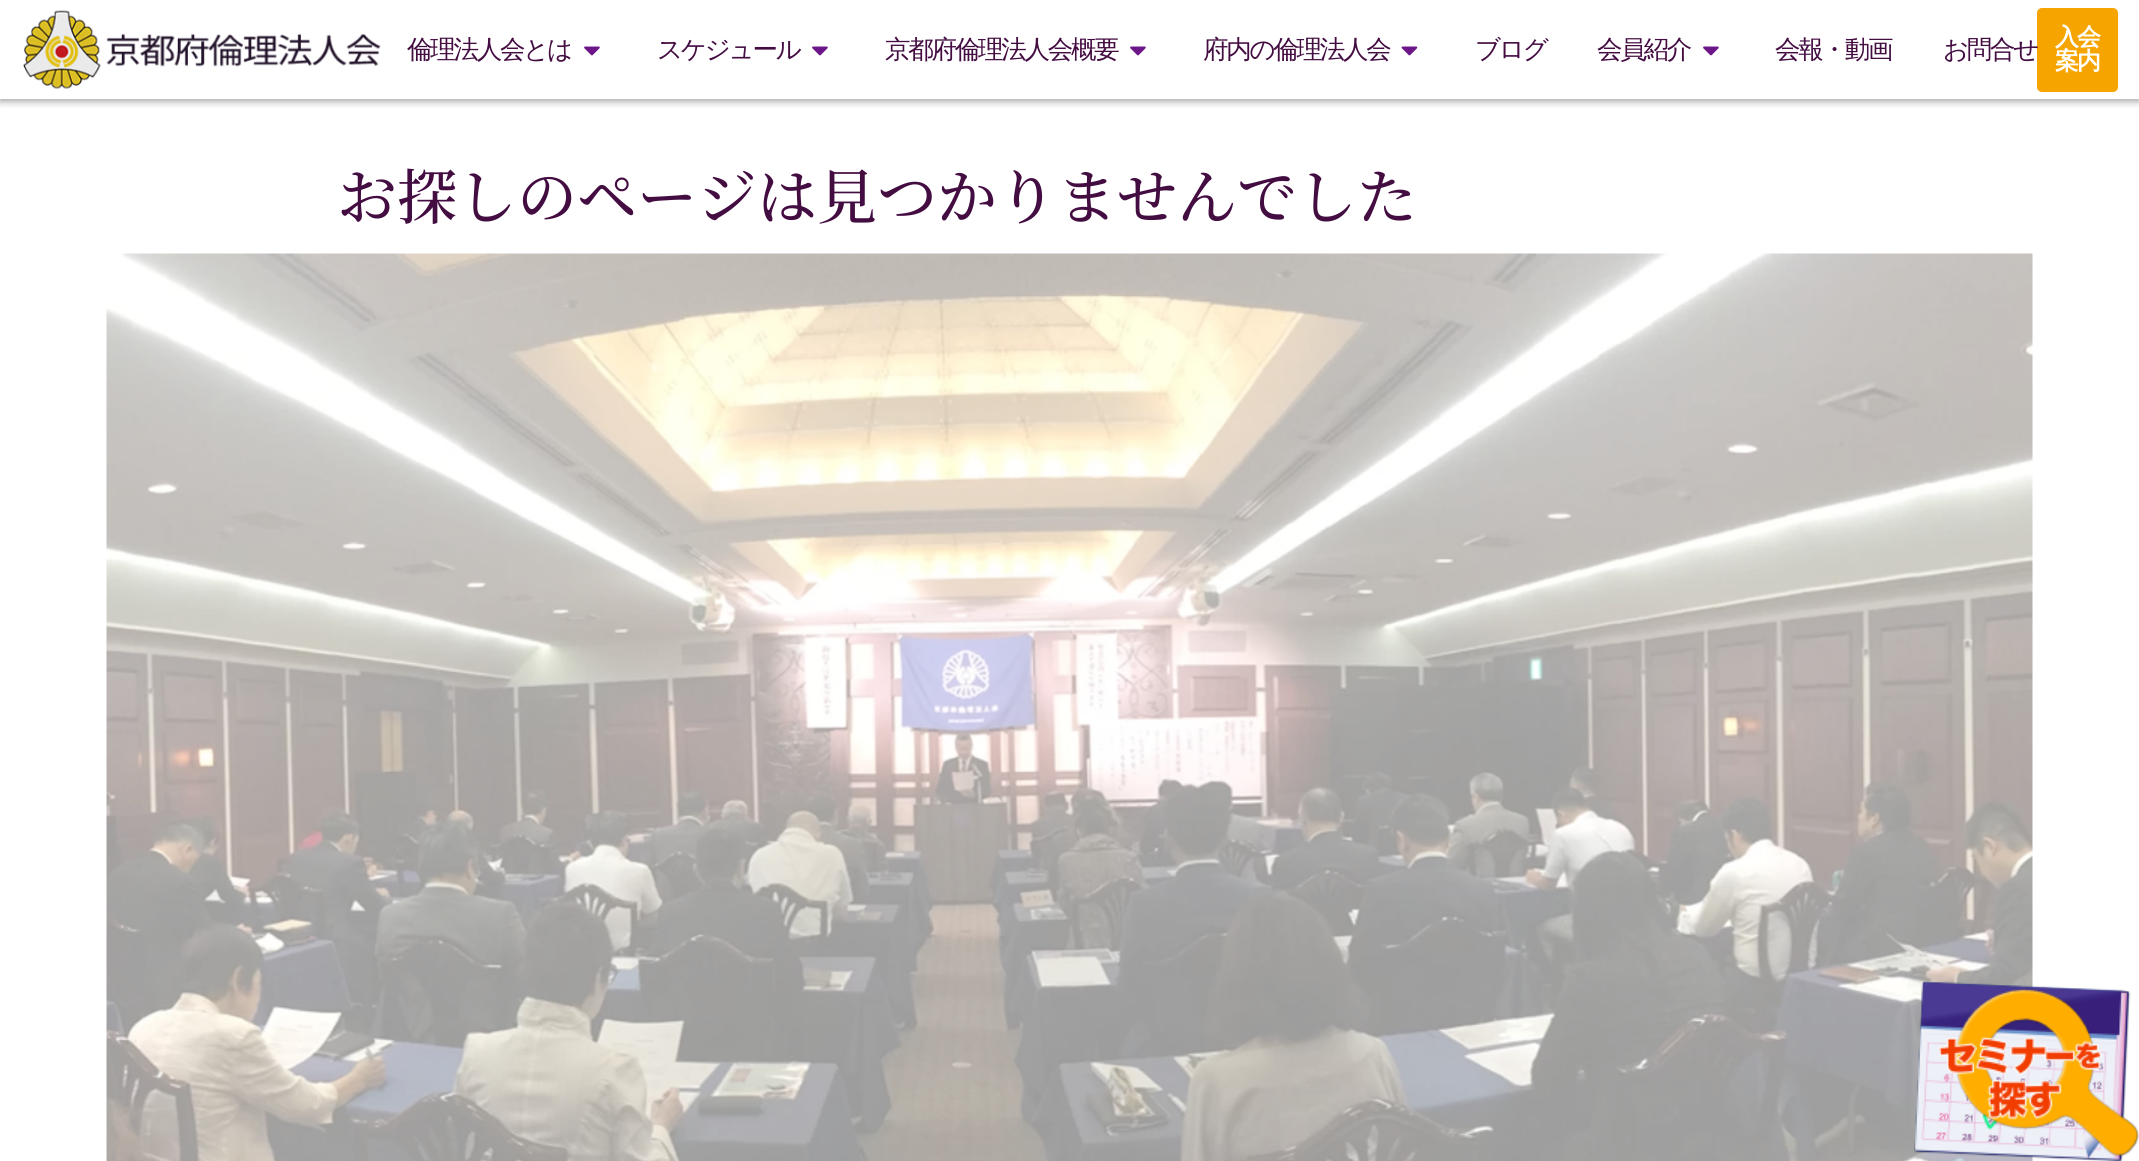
#include <cairo.h>
#include <math.h>
#include <stddef.h>


static void set_color(cairo_t *cr, unsigned color) {
    cairo_set_source_rgb(cr, (color >> 16) / 255.0, (color >> 8 & 255) / 255.0, (color & 255) / 255.0);
}

static void draw_text(cairo_t *cr, double x, double y, const char *s, const char *family, double size, int italic, int bold, unsigned color) {
    cairo_select_font_face(cr, family, italic ? CAIRO_FONT_SLANT_ITALIC : CAIRO_FONT_SLANT_NORMAL,
        bold ? CAIRO_FONT_WEIGHT_BOLD : CAIRO_FONT_WEIGHT_NORMAL);
    cairo_set_font_size(cr, size);
    set_color(cr, color);
    cairo_move_to(cr, x, y);
    cairo_show_text(cr, s);
}

static void draw_spaced(cairo_t *cr, double x, double y, const char *s, double letter, double word) {
    cairo_move_to(cr, x, y);
    while (*s) {
        char ch[5] = {0};
        int n = 0;
        do ch[n++] = *s++; while ((*s & 0xC0) == 0x80);
        cairo_show_text(cr, ch);
        cairo_rel_move_to(cr, letter + word * (*ch == ' '), 0);
    }
}

static void rounded_rect(cairo_t *cr, double x, double y, double w, double h, double r) {
    cairo_new_sub_path(cr);
    cairo_arc(cr, x + w - r, y + h - r, r, 0, M_PI / 2);
    cairo_arc(cr, x + r, y + h - r, r, M_PI / 2, M_PI);
    cairo_arc(cr, x + r, y + r, r, M_PI, 1.5 * M_PI);
    cairo_arc(cr, x + w - r, y + r, r, 1.5 * M_PI, 2 * M_PI);
    cairo_close_path(cr);
}

static void draw_shadow(cairo_t *cr, double x, double y, double w, double h, double r, double blur, double alpha) {
    cairo_push_group_with_content(cr, CAIRO_CONTENT_ALPHA);
    cairo_set_operator(cr, CAIRO_OPERATOR_SOURCE);
    for (int i = 15; i >= -15 && fmin(w, h) + blur * i / 3 > 0; i -= 2) {
        double e = blur * i / 6;
        cairo_set_source_rgba(cr, 0, 0, 0, alpha * erfc((i - 1) / 8.5) / 2);
        rounded_rect(cr, x - e, y - e, w + 2 * e, h + 2 * e, fmax(0, fmin(r + e + blur * .6, fmin(w, h) / 2 + e)));
        cairo_fill(cr);
    }
    cairo_pattern_t *soft = cairo_pop_group(cr);
    cairo_mask(cr, soft);
    cairo_pattern_destroy(soft);
}

static void draw_image(cairo_t *cr, const char *path, double x, double y, double w, double h) {
    cairo_surface_t *image = cairo_image_surface_create_from_png(path);
    cairo_save(cr);
    cairo_set_source_surface(cr, image, x, y);
    cairo_rectangle(cr, x, y, w, h);
    cairo_fill(cr);
    cairo_restore(cr);
    cairo_surface_destroy(image);
}

int main(void) {
    cairo_surface_t *surface = cairo_image_surface_create(CAIRO_FORMAT_RGB24, 2139, 1161);
    cairo_t *cr = cairo_create(surface);
    cairo_font_options_t *options = cairo_font_options_create();
    cairo_font_options_set_hint_metrics(options, CAIRO_HINT_METRICS_OFF);
    cairo_font_options_set_hint_style(options, CAIRO_HINT_STYLE_NONE);
    cairo_set_font_options(cr, options);
    cairo_set_miter_limit(cr, 4);
    set_color(cr, 0xFFFFFF);
    cairo_paint(cr);
    cairo_save(cr);
    cairo_rectangle(cr, 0, 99, 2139, 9);
    cairo_clip(cr);
    set_color(cr, 0x000000);
    draw_shadow(cr, 0, 2, 2139, 99, 0, 4, 0.4);
    cairo_restore(cr);
    draw_image(cr, "assets/img1.png", 23, 10, 358, 79);
    cairo_select_font_face(cr, "WenQuanYi Zen Hei Medium", CAIRO_FONT_SLANT_NORMAL, CAIRO_FONT_WEIGHT_NORMAL);
    cairo_set_font_size(cr, 25.5);
    set_color(cr, 0x440D42);
    draw_spaced(cr, 407, 58, "倫理法人会とは", -2.25, 0);
    draw_image(cr, "assets/img2.png", 584, 46, 16, 10);
    draw_spaced(cr, 657, 58, "スケジュール", -2.25, 0);
    draw_image(cr, "assets/img2.png", 812, 46, 16, 10);
    draw_spaced(cr, 885, 58, "京都府倫理法人会概要", -2.25, 0);
    draw_image(cr, "assets/img2.png", 1130, 46, 16, 10);
    draw_spaced(cr, 1203, 58, "府内の倫理法人会", -2.25, 0);
    draw_image(cr, "assets/img3.png", 1401, 46, 17, 10);
    draw_spaced(cr, 1475, 58, "ブログ", -2.25, 0);
    draw_spaced(cr, 1597, 58, "会員紹介", -2.25, 0);
    draw_image(cr, "assets/img2.png", 1703, 46, 16, 10);
    draw_spaced(cr, 1775, 58, "会報・動画", -2.25, 0);
    set_color(cr, 0xF6A400);
    rounded_rect(cr, 2037, 8, 81, 84, 5);
    cairo_fill(cr);
    set_color(cr, 0x440D42);
    draw_spaced(cr, 1943, 58, "お問合せ", -2.25, 0);
    cairo_select_font_face(cr, "WenQuanYi Zen Hei", CAIRO_FONT_SLANT_NORMAL, CAIRO_FONT_WEIGHT_BOLD);
    cairo_set_font_size(cr, 24);
    set_color(cr, 0xFFFFFF);
    draw_spaced(cr, 2055, 45, "入会", -2, 0);
    draw_spaced(cr, 2055, 69, "案内", -2, 0);
    draw_text(cr, 337, 219, "お探しのページは見つかりませんでした", "Noto Serif JP Medium", 60, 0, 0, 0x440D42);
    draw_image(cr, "assets/img4.png", 106, 253, 1927, 908);
    draw_image(cr, "assets/img5.png", 1914, 981, 225, 180);
    draw_image(cr, "assets/img6.png", 1914, 981, 225, 180);
    cairo_surface_write_to_png(surface, "output.png");
    cairo_font_options_destroy(options);
    cairo_destroy(cr);
    cairo_surface_destroy(surface);
    return 0;
}
